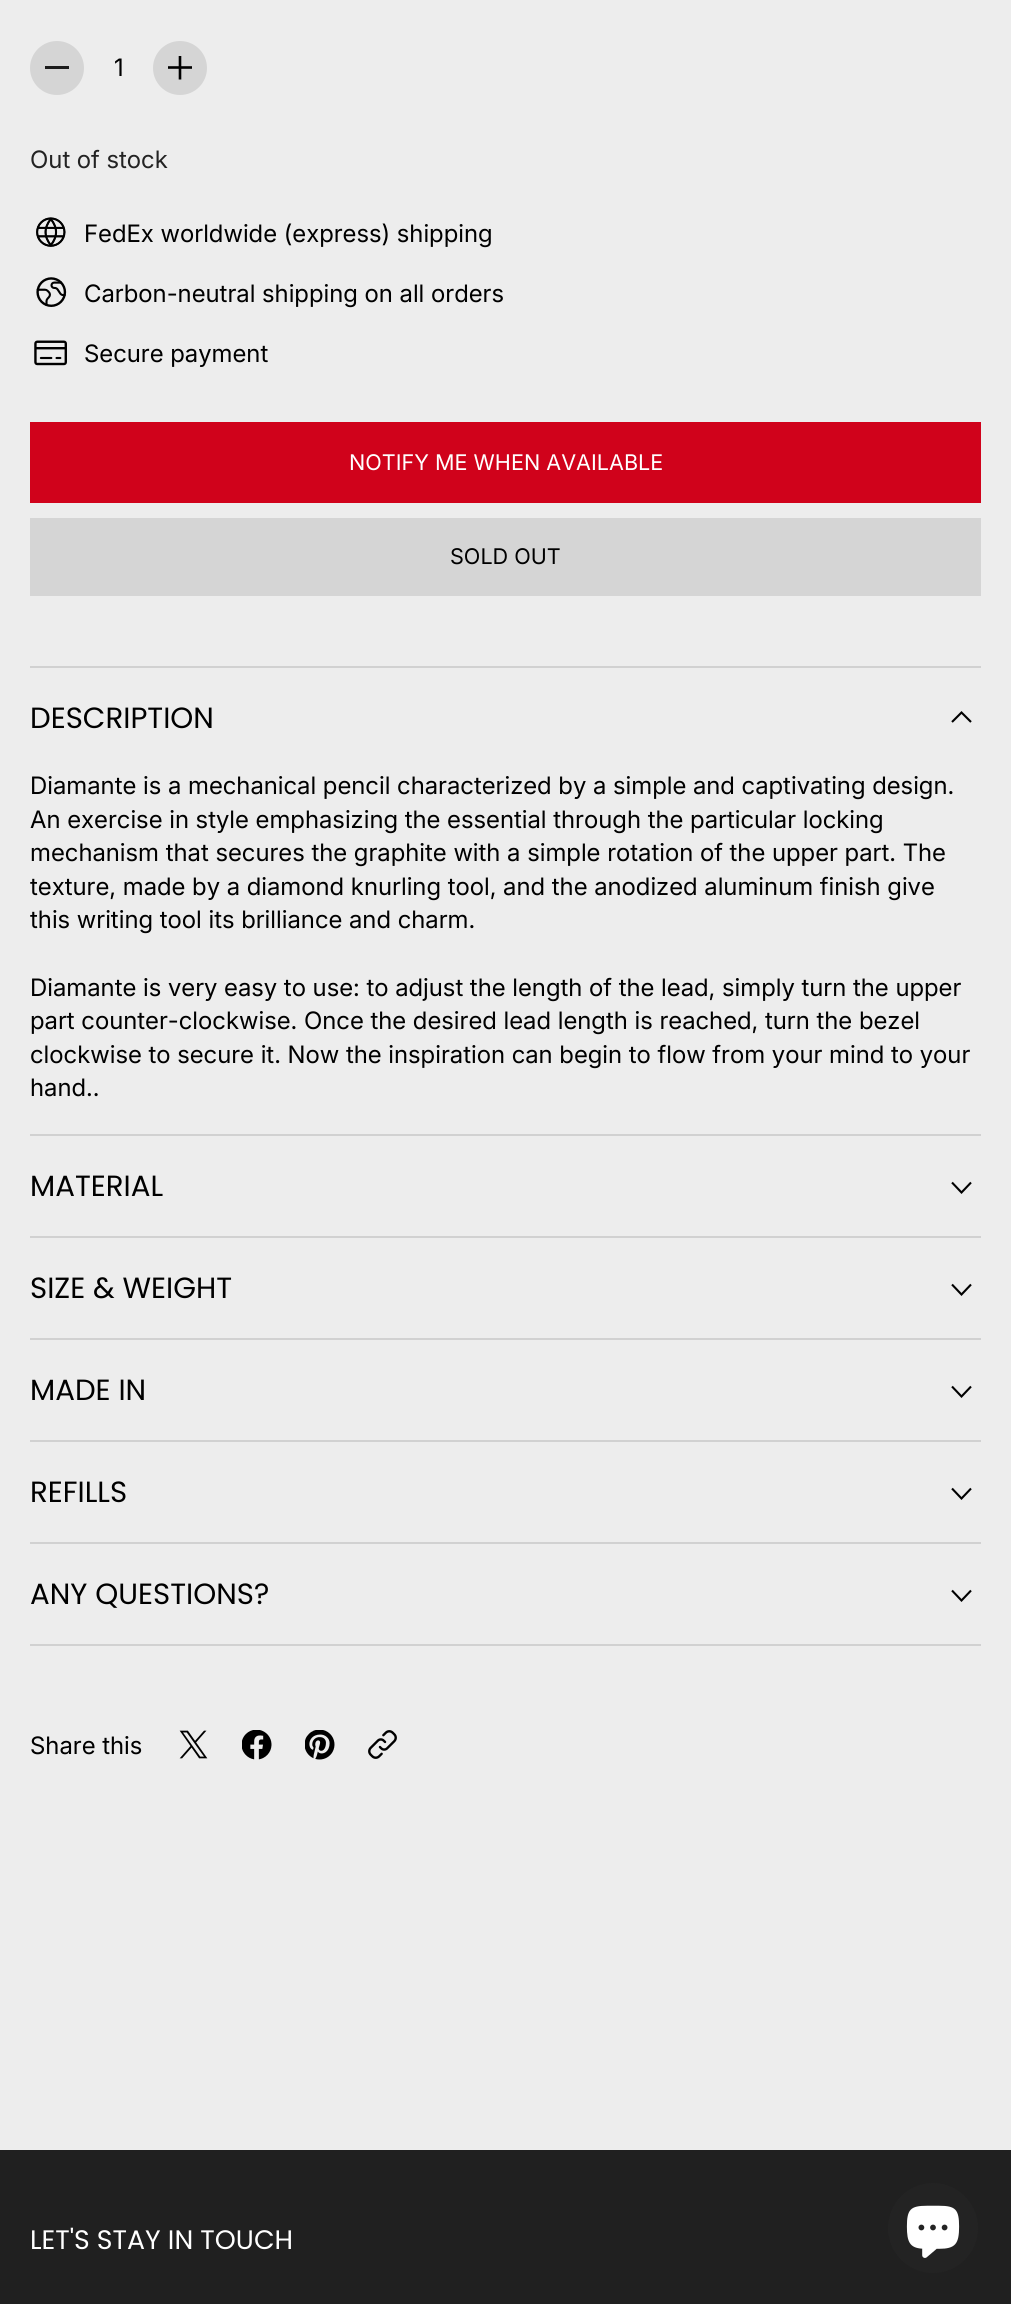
#include <cairo.h>
#include <math.h>
#include <stddef.h>


static void set_color(cairo_t *cr, unsigned color) {
    cairo_set_source_rgb(cr, (color >> 16) / 255.0, (color >> 8 & 255) / 255.0, (color & 255) / 255.0);
}

static void draw_text(cairo_t *cr, double x, double y, const char *s, const char *family, double size, int italic, int bold, unsigned color) {
    cairo_select_font_face(cr, family, italic ? CAIRO_FONT_SLANT_ITALIC : CAIRO_FONT_SLANT_NORMAL,
        bold ? CAIRO_FONT_WEIGHT_BOLD : CAIRO_FONT_WEIGHT_NORMAL);
    cairo_set_font_size(cr, size);
    set_color(cr, color);
    cairo_move_to(cr, x, y);
    cairo_show_text(cr, s);
}

static void fill_rect(cairo_t *cr, double x, double y, double w, double h, unsigned color) {
    set_color(cr, color);
    cairo_rectangle(cr, x, y, w, h);
    cairo_fill(cr);
}

static void draw_image(cairo_t *cr, const char *path, double x, double y, double w, double h) {
    cairo_surface_t *image = cairo_image_surface_create_from_png(path);
    cairo_save(cr);
    cairo_set_source_surface(cr, image, x, y);
    cairo_rectangle(cr, x, y, w, h);
    cairo_fill(cr);
    cairo_restore(cr);
    cairo_surface_destroy(image);
}

int main(void) {
    cairo_surface_t *surface = cairo_image_surface_create(CAIRO_FORMAT_RGB24, 1011, 2304);
    cairo_t *cr = cairo_create(surface);
    cairo_font_options_t *options = cairo_font_options_create();
    cairo_font_options_set_hint_metrics(options, CAIRO_HINT_METRICS_OFF);
    cairo_font_options_set_hint_style(options, CAIRO_HINT_STYLE_NONE);
    cairo_set_font_options(cr, options);
    cairo_set_miter_limit(cr, 4);
    set_color(cr, 0xEDEDED);
    cairo_paint(cr);
    set_color(cr, 0xD5D5D5);
    cairo_arc(cr, 57, 68, 27, 0, 2 * M_PI);
    cairo_fill(cr);
    fill_rect(cr, 45, 66, 24, 3, 0x1C1C1C);
    draw_text(cr, 114, 76, "1", "Inter", 24, 0, 0, 0x000000);
    set_color(cr, 0xD5D5D5);
    cairo_new_path(cr);
    cairo_arc(cr, 180, 68, 27, 0, 2 * M_PI);
    cairo_fill(cr);
    draw_image(cr, "assets/img1.png", 168, 56, 24, 24);
    draw_text(cr, 30, 168, "Out of stock", "Inter", 24, 0, 0, 0x232323);
    draw_image(cr, "assets/img2.png", 36, 217, 30, 30);
    draw_text(cr, 84, 242, "FedEx worldwide (express) shipping", "Inter", 24, 0, 0, 0x000000);
    draw_image(cr, "assets/img3.png", 36, 277, 31, 30);
    draw_text(cr, 84, 302, "Carbon-neutral shipping on all orders", "Inter", 24, 0, 0, 0x000000);
    draw_image(cr, "assets/img4.png", 34, 340, 33, 26);
    draw_text(cr, 84, 362, "Secure payment", "Inter", 24, 0, 0, 0x000000);
    fill_rect(cr, 30, 422, 951, 81, 0xD0021B);
    draw_text(cr, 349, 470, "NOTIFY ME WHEN AVAILABLE", "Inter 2", 21.6, 0, 0, 0xFFFFFF);
    fill_rect(cr, 30, 518, 951, 78, 0xD5D5D5);
    draw_text(cr, 450, 564, "SOLD OUT", "Inter 2", 21.6, 0, 0, 0x000000);
    fill_rect(cr, 30, 666, 951, 2, 0xD1D1D1);
    fill_rect(cr, 30, 1134, 951, 2, 0xD1D1D1);
    draw_text(cr, 30, 728, "DESCRIPTION", "Poppins", 29.25, 0, 0, 0x000000);
    cairo_new_path(cr);
    cairo_move_to(cr, 952, 722);
    cairo_line_to(cr, 961.5, 712.5);
    cairo_line_to(cr, 971, 722);
    cairo_set_line_width(cr, 2.1);
    cairo_stroke(cr);
    draw_text(cr, 30, 794, "Diamante is a mechanical pencil characterized by a simple and captivating design.", "Inter", 24, 0, 0, 0x000000);
    draw_text(cr, 30, 828, "An exercise in style emphasizing the essential through the particular locking", "Inter", 24, 0, 0, 0x000000);
    draw_text(cr, 30, 861, "mechanism that secures the graphite with a simple rotation of the upper part. The", "Inter", 24, 0, 0, 0x000000);
    draw_text(cr, 30, 895, "texture, made by a diamond knurling tool, and the anodized aluminum finish give", "Inter", 24, 0, 0, 0x000000);
    draw_text(cr, 30, 928, "this writing tool its brilliance and charm.", "Inter", 24, 0, 0, 0x000000);
    draw_text(cr, 30, 996, "Diamante is very easy to use: to adjust the length of the lead, simply turn the upper", "Inter", 24, 0, 0, 0x000000);
    draw_text(cr, 30, 1029, "part counter-clockwise. Once the desired lead length is reached, turn the bezel", "Inter", 24, 0, 0, 0x000000);
    draw_text(cr, 30, 1063, "clockwise to secure it. Now the inspiration can begin to flow from your mind to your", "Inter", 24, 0, 0, 0x000000);
    draw_text(cr, 30, 1096, "hand..", "Inter", 24, 0, 0, 0x000000);
    fill_rect(cr, 30, 1236, 951, 2, 0xD1D1D1);
    draw_text(cr, 30, 1196, "MATERIAL", "Poppins", 29.25, 0, 0, 0x000000);
    cairo_new_path(cr);
    cairo_move_to(cr, 952, 1182.5);
    cairo_line_to(cr, 961.5, 1192.5);
    cairo_line_to(cr, 971, 1182.5);
    cairo_stroke(cr);
    fill_rect(cr, 30, 1338, 951, 2, 0xD1D1D1);
    draw_text(cr, 30, 1298, "SIZE & WEIGHT", "Poppins", 29.25, 0, 0, 0x000000);
    cairo_new_path(cr);
    cairo_move_to(cr, 952, 1284.5);
    cairo_line_to(cr, 961.5, 1294.5);
    cairo_line_to(cr, 971, 1284.5);
    cairo_stroke(cr);
    fill_rect(cr, 30, 1440, 951, 2, 0xD1D1D1);
    draw_text(cr, 30, 1400, "MADE IN", "Poppins", 29.25, 0, 0, 0x000000);
    cairo_new_path(cr);
    cairo_move_to(cr, 952, 1386.5);
    cairo_line_to(cr, 961.5, 1396.5);
    cairo_line_to(cr, 971, 1386.5);
    cairo_stroke(cr);
    fill_rect(cr, 30, 1542, 951, 2, 0xD1D1D1);
    draw_text(cr, 30, 1502, "REFILLS", "Poppins", 29.25, 0, 0, 0x000000);
    cairo_new_path(cr);
    cairo_move_to(cr, 952, 1488.5);
    cairo_line_to(cr, 961.5, 1498.5);
    cairo_line_to(cr, 971, 1488.5);
    cairo_stroke(cr);
    fill_rect(cr, 30, 1644, 951, 2, 0xD1D1D1);
    draw_text(cr, 30, 1604, "ANY QUESTIONS?", "Poppins", 29.25, 0, 0, 0x000000);
    cairo_new_path(cr);
    cairo_move_to(cr, 952, 1590.5);
    cairo_line_to(cr, 961.5, 1600.5);
    cairo_line_to(cr, 971, 1590.5);
    cairo_stroke(cr);
    draw_text(cr, 30, 1754, "Share this", "Inter", 24, 0, 0, 0x000000);
    draw_image(cr, "assets/img5.png", 179, 1730, 29, 29);
    draw_image(cr, "assets/img6.png", 242, 1730, 30, 30);
    draw_image(cr, "assets/img7.png", 305, 1730, 30, 30);
    draw_image(cr, "assets/img8.png", 368, 1730, 29, 29);
    fill_rect(cr, 0, 2150, 1011, 154, 0x202020);
    draw_text(cr, 30, 2249, "LET'S STAY IN TOUCH", "Poppins", 26.75, 0, 0, 0xFFFFFF);
    set_color(cr, 0x232323);
    cairo_new_path(cr);
    cairo_arc(cr, 933, 2228, 45, 0, 2 * M_PI);
    cairo_fill(cr);
    draw_image(cr, "assets/img9.png", 906, 2205, 54, 53);
    cairo_surface_write_to_png(surface, "output.png");
    cairo_font_options_destroy(options);
    cairo_destroy(cr);
    cairo_surface_destroy(surface);
    return 0;
}
